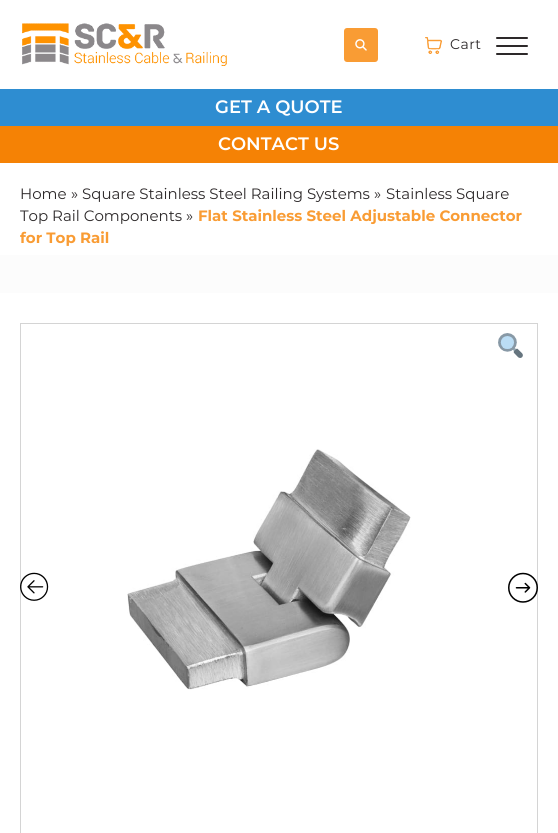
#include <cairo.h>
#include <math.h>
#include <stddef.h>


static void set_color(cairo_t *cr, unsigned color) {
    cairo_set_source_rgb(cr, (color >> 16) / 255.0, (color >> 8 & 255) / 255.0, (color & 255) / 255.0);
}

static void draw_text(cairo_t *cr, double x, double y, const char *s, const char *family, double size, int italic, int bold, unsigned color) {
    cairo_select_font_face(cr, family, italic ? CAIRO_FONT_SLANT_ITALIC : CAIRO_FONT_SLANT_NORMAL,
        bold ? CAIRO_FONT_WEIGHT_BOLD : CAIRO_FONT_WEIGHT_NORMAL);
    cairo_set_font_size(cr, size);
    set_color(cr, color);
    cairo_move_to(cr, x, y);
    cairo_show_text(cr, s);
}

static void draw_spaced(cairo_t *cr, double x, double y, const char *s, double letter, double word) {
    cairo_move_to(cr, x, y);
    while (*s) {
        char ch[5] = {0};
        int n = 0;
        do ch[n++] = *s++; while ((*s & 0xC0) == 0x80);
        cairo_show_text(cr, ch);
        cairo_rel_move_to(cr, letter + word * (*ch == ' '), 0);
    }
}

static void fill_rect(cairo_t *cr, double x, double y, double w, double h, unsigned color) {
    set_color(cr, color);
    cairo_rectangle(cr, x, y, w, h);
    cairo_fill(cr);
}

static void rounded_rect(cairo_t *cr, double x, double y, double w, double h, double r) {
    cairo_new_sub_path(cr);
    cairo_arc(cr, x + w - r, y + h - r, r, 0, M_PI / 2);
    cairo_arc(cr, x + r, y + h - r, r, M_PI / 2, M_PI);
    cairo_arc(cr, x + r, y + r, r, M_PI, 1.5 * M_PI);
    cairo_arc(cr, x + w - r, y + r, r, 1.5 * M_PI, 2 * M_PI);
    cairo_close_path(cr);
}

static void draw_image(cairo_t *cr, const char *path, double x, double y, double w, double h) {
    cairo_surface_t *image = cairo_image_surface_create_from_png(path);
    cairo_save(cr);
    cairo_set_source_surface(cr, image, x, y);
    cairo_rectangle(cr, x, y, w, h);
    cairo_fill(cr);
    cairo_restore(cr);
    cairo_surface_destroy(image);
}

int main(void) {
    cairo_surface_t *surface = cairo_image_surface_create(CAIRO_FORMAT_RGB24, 558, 833);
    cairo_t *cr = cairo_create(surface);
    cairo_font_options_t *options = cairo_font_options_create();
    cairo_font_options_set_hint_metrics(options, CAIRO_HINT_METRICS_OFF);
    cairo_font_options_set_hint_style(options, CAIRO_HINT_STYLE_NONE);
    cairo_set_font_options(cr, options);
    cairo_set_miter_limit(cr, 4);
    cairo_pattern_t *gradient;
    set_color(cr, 0xFFFFFF);
    cairo_paint(cr);
    gradient = cairo_pattern_create_linear(279, 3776, 279, 0);
    cairo_pattern_add_color_stop_rgba(gradient, 0, 0.855, 0.855, 0.855, 1);
    cairo_pattern_add_color_stop_rgba(gradient, 1, 1, 1, 1, 1);
    cairo_set_source(cr, gradient);
    cairo_pattern_destroy(gradient);
    cairo_rectangle(cr, 0, 255, 558, 38);
    cairo_fill(cr);
    draw_image(cr, "assets/img1.png", 22, 23, 205, 43);
    set_color(cr, 0xF99C34);
    rounded_rect(cr, 344, 28, 34, 34, 3);
    cairo_fill(cr);
    draw_image(cr, "assets/img2.png", 355, 39, 12, 12);
    draw_image(cr, "assets/img3.png", 425, 37, 17, 17);
    cairo_select_font_face(cr, "Montserrat", CAIRO_FONT_SLANT_NORMAL, CAIRO_FONT_WEIGHT_NORMAL);
    cairo_set_font_size(cr, 14);
    set_color(cr, 0x2D292A);
    draw_spaced(cr, 450, 49, "Cart", 0.5, 0);
    rounded_rect(cr, 496, 37, 32, 2, 1);
    cairo_fill(cr);
    rounded_rect(cr, 496, 45, 32, 2, 1);
    cairo_fill(cr);
    rounded_rect(cr, 496, 53, 32, 2, 1);
    cairo_fill(cr);
    fill_rect(cr, 0, 89, 558, 37, 0x2E8DD1);
    draw_text(cr, 215, 113, "GET A QUOTE", "Montserrat SemiBold", 18, 0, 0, 0xFFFFFF);
    fill_rect(cr, 0, 126, 558, 37, 0xF58205);
    draw_text(cr, 218, 150, "CONTACT US", "Montserrat SemiBold", 18, 0, 0, 0xFFFFFF);
    draw_text(cr, 20, 199, "Home", "Montserrat", 15, 0, 0, 0x2D292A);
    draw_text(cr, 71, 199, "»", "Montserrat", 15, 0, 0, 0x2D292A);
    draw_text(cr, 82, 199, "Square Stainless Steel Railing Systems", "Montserrat", 15, 0, 0, 0x2D292A);
    draw_text(cr, 374, 199, "»", "Montserrat", 15, 0, 0, 0x2D292A);
    draw_text(cr, 386, 199, "Stainless Square", "Montserrat", 15, 0, 0, 0x2D292A);
    draw_text(cr, 20, 221, "Top Rail Components", "Montserrat", 15, 0, 0, 0x2D292A);
    draw_text(cr, 186, 221, "»", "Montserrat", 15, 0, 0, 0x2D292A);
    draw_text(cr, 198, 221, "Flat Stainless Steel Adjustable Connector", "Montserrat", 15, 0, 1, 0xF99C34);
    draw_text(cr, 20, 243, "for Top Rail", "Montserrat", 15, 0, 1, 0xF99C34);
    cairo_rectangle(cr, 20.5, 323.5, 517, 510);
    set_color(cr, 0xD4D4D4);
    cairo_set_line_width(cr, 1);
    cairo_stroke(cr);
    draw_image(cr, "assets/img4.png", 127, 449, 284, 241);
    draw_image(cr, "assets/img5.png", 498, 333, 25, 25);
    draw_image(cr, "assets/img6.png", 20, 572, 29, 29);
    draw_image(cr, "assets/img7.png", 508, 572, 30, 31);
    cairo_surface_write_to_png(surface, "output.png");
    cairo_font_options_destroy(options);
    cairo_destroy(cr);
    cairo_surface_destroy(surface);
    return 0;
}
